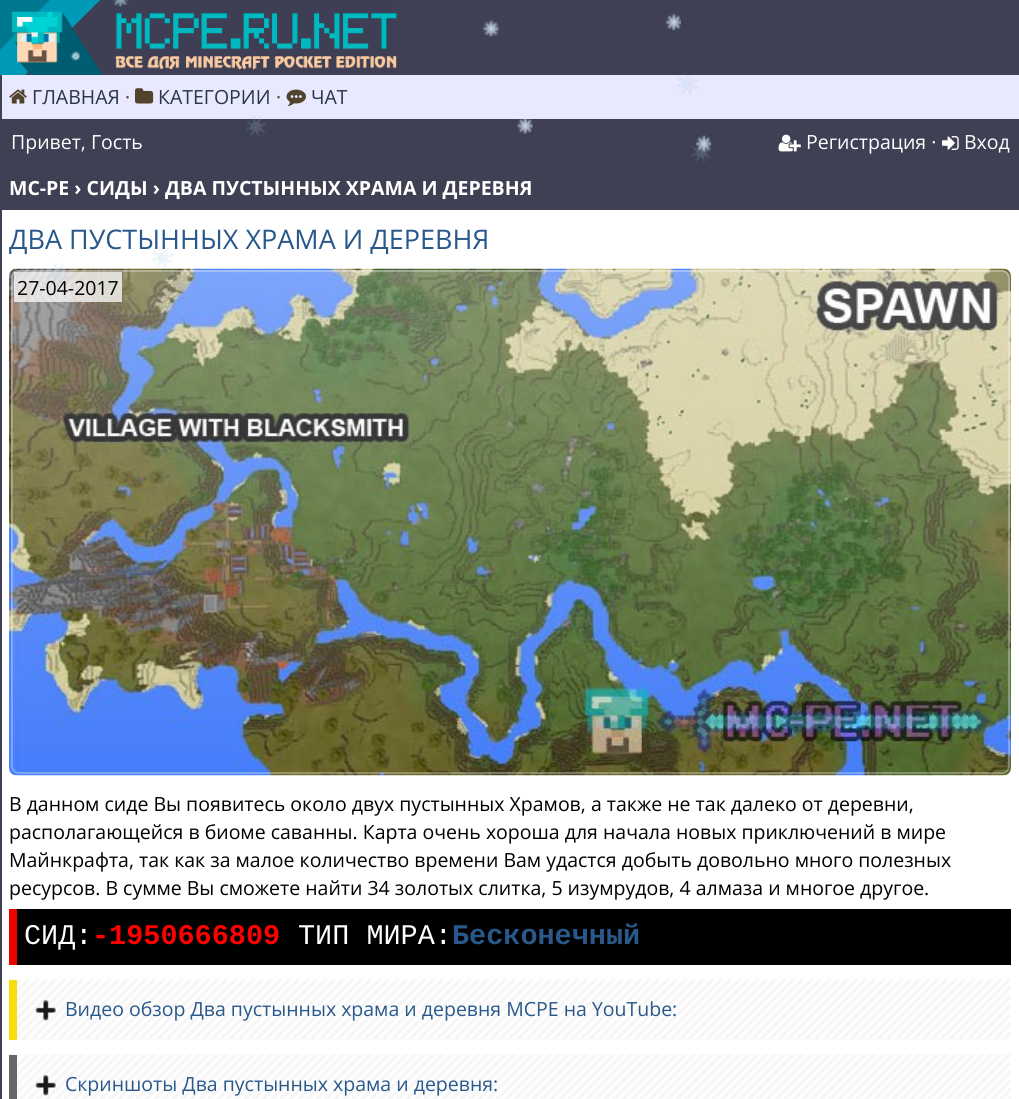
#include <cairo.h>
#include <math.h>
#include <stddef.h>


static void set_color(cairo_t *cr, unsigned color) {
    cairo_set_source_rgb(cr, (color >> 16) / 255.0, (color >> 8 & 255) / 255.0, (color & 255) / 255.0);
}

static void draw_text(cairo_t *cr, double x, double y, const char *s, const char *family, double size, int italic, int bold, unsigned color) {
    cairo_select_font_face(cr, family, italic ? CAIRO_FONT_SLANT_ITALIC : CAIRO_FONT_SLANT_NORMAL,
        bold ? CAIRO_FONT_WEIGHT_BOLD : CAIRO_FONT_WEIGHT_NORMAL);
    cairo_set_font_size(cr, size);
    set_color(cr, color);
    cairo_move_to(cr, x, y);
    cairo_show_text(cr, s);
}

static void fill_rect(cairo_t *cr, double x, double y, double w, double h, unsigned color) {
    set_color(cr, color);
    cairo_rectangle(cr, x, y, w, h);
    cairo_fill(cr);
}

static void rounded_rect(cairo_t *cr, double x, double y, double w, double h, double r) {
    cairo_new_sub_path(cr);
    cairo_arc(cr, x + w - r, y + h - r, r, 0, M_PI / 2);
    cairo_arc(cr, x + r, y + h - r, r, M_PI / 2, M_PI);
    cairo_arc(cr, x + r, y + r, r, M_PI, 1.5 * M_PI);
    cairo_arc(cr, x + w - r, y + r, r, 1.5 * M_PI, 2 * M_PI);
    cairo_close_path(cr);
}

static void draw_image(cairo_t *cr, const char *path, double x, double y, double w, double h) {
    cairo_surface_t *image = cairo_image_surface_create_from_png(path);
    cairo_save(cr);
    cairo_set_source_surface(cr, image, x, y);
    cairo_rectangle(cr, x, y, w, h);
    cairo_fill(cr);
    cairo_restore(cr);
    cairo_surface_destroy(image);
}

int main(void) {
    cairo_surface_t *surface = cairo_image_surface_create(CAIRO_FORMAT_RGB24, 1019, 1099);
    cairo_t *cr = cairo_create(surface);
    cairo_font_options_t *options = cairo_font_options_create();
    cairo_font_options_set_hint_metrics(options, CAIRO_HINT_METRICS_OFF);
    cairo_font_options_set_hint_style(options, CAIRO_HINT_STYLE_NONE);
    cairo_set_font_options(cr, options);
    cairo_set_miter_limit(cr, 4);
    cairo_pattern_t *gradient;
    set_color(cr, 0x404055);
    cairo_paint(cr);
    draw_image(cr, "assets/img6.png", 0, 0, 397, 75);
    draw_image(cr, "assets/img1.png", 112, 0, 17, 7);
    fill_rect(cr, 579, 0, 1, 1, 0x414458);
    draw_image(cr, "assets/img2.png", 482, 19, 18, 18);
    draw_image(cr, "assets/img3.png", 665, 13, 16, 17);
    draw_image(cr, "assets/img4.png", 70, 50, 11, 11);
    fill_rect(cr, 2, 75, 1017, 44, 0xE8E8FF);
    draw_image(cr, "assets/img5.png", 676, 73, 23, 22);
    draw_image(cr, "assets/img7.png", 9, 89, 18, 15);
    draw_text(cr, 32, 104, "ГЛАВНАЯ", "Open Sans", 19.5, 0, 0, 0x2A3646);
    draw_text(cr, 125, 104, "·", "Open Sans", 19.5, 0, 0, 0x52432C);
    draw_image(cr, "assets/img8.png", 135, 88, 19, 16);
    draw_text(cr, 158, 104, "КАТЕГОРИИ", "Open Sans", 19.5, 0, 0, 0x2A3646);
    draw_text(cr, 276, 104, "·", "Open Sans", 19.5, 0, 0, 0x52432C);
    draw_image(cr, "assets/img9.png", 286, 89, 20, 17);
    draw_text(cr, 311, 104, "ЧАТ", "Open Sans", 19.5, 0, 0, 0x2A3646);
    draw_text(cr, 11, 149, "Привет, Гость", "Open Sans", 19.5, 0, 0, 0xFFFFFF);
    draw_image(cr, "assets/img10.png", 778, 134, 23, 18);
    draw_text(cr, 806, 149, "Регистрация ·", "Open Sans", 19.5, 0, 0, 0xFFFFFF);
    draw_image(cr, "assets/img11.png", 942, 136, 17, 14);
    draw_text(cr, 964, 149, "Вход", "Open Sans", 19.5, 0, 0, 0xFFFFFF);
    fill_rect(cr, 2, 210, 1017, 889, 0xFFFFFF);
    draw_text(cr, 9, 195, "MC-PE › СИДЫ › ДВА ПУСТЫННЫХ ХРАМА И ДЕРЕВНЯ", "Open Sans", 19.5, 0, 1, 0xFFFFFF);
    cairo_save(cr);
    cairo_rectangle(cr, 9, 225, 1002, 29);
    cairo_clip(cr);
    draw_text(cr, 9, 249, "ДВА ПУСТЫННЫХ ХРАМА И ДЕРЕВНЯ", "Open Sans", 27, 0, 0, 0x29588B);
    cairo_restore(cr);
    draw_image(cr, "assets/img12.png", 9, 268, 1002, 508);
    gradient = cairo_pattern_create_linear(510, 270, 510, 774);
    cairo_pattern_add_color_stop_rgba(gradient, 0, 1, 1, 1, 0.3);
    cairo_pattern_add_color_stop_rgba(gradient, 1, 1, 1, 1, 0);
    cairo_set_source(cr, gradient);
    cairo_pattern_destroy(gradient);
    rounded_rect(cr, 11, 270, 999, 504, 8);
    cairo_fill(cr);
    rounded_rect(cr, 12, 271, 997, 502, 7);
    cairo_set_source_rgba(cr, 1, 1, 1, 0.3);
    cairo_stroke(cr);
    cairo_set_source_rgba(cr, 1, 1, 1, 0.74);
    cairo_rectangle(cr, 14, 272, 108, 30);
    cairo_fill(cr);
    draw_text(cr, 17, 295, "27-04-2017", "Open Sans", 19.5, 0, 0, 0x000000);
    draw_text(cr, 9, 811, "В данном сиде Вы появитесь около двух пустынных Храмов, а также не так далеко от деревни,", "Open Sans", 19.5, 0, 0, 0x000000);
    draw_text(cr, 9, 839, "располагающейся в биоме саванны. Карта очень хороша для начала новых приключений в мире", "Open Sans", 19.5, 0, 0, 0x000000);
    draw_text(cr, 9, 867, "Майнкрафта, так как за малое количество времени Вам удастся добыть довольно много полезных", "Open Sans", 19.5, 0, 0, 0x000000);
    draw_text(cr, 9, 895, "ресурсов. В сумме Вы сможете найти 34 золотых слитка, 5 изумрудов, 4 алмаза и многое другое.", "Open Sans", 19.5, 0, 0, 0x000000);
    fill_rect(cr, 17, 909, 994, 56, 0x000000);
    fill_rect(cr, 9, 909, 8, 56, 0xF10000);
    draw_text(cr, 24, 944, "СИД:", "Liberation Mono", 28.5, 0, 0, 0xFFFFFF);
    draw_text(cr, 92, 944, "-1950666809", "Liberation Mono", 28.5, 0, 1, 0xFF0000);
    draw_text(cr, 298, 944, "ТИП МИРА:", "Liberation Mono", 28.5, 0, 0, 0xFFFFFF);
    draw_text(cr, 452, 944, "Бесконечный", "Liberation Mono", 28.5, 0, 1, 0x29588B);
    fill_rect(cr, 17, 1039, 994, 1, 0xF8F9F9);
    draw_image(cr, "assets/img13.png", 9, 979, 1002, 60);
    fill_rect(cr, 9, 980, 8, 60, 0xFADC0D);
    draw_image(cr, "assets/img14.png", 35, 1000, 21, 21);
    draw_text(cr, 65, 1016, "Видео обзор Два пустынных храма и деревня MCPE на YouTube:", "Open Sans", 19.5, 0, 0, 0x29588B);
    draw_image(cr, "assets/img15.png", 9, 1054, 1002, 45);
    fill_rect(cr, 9, 1055, 8, 44, 0x666666);
    draw_image(cr, "assets/img14.png", 35, 1075, 21, 21);
    draw_text(cr, 65, 1091, "Скриншоты Два пустынных храма и деревня:", "Open Sans", 19.5, 0, 0, 0x29588B);
    draw_image(cr, "assets/img16.png", 245, 115, 22, 22);
    draw_image(cr, "assets/img17.png", 517, 118, 16, 16);
    draw_image(cr, "assets/img18.png", 695, 135, 16, 17);
    draw_image(cr, "assets/img19.png", 691, 143, 21, 20);
    draw_image(cr, "assets/img20.png", 151, 246, 23, 22);
    draw_image(cr, "assets/img21.png", 46, 262, 22, 23);
    cairo_surface_write_to_png(surface, "output.png");
    cairo_font_options_destroy(options);
    cairo_destroy(cr);
    cairo_surface_destroy(surface);
    return 0;
}
